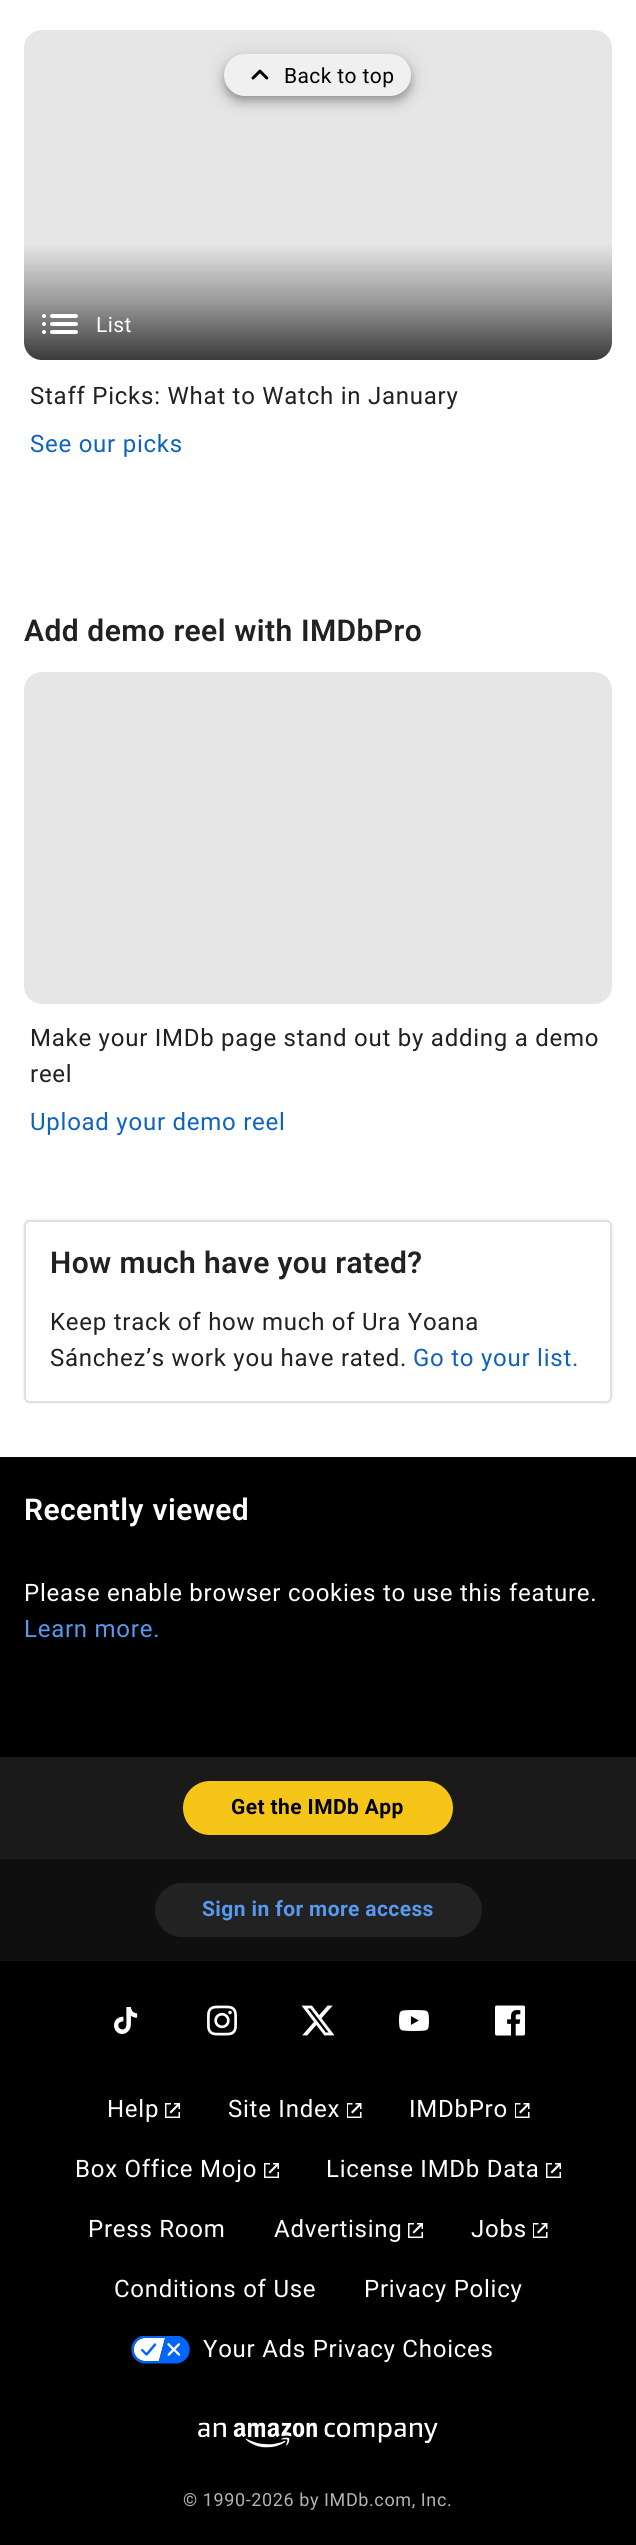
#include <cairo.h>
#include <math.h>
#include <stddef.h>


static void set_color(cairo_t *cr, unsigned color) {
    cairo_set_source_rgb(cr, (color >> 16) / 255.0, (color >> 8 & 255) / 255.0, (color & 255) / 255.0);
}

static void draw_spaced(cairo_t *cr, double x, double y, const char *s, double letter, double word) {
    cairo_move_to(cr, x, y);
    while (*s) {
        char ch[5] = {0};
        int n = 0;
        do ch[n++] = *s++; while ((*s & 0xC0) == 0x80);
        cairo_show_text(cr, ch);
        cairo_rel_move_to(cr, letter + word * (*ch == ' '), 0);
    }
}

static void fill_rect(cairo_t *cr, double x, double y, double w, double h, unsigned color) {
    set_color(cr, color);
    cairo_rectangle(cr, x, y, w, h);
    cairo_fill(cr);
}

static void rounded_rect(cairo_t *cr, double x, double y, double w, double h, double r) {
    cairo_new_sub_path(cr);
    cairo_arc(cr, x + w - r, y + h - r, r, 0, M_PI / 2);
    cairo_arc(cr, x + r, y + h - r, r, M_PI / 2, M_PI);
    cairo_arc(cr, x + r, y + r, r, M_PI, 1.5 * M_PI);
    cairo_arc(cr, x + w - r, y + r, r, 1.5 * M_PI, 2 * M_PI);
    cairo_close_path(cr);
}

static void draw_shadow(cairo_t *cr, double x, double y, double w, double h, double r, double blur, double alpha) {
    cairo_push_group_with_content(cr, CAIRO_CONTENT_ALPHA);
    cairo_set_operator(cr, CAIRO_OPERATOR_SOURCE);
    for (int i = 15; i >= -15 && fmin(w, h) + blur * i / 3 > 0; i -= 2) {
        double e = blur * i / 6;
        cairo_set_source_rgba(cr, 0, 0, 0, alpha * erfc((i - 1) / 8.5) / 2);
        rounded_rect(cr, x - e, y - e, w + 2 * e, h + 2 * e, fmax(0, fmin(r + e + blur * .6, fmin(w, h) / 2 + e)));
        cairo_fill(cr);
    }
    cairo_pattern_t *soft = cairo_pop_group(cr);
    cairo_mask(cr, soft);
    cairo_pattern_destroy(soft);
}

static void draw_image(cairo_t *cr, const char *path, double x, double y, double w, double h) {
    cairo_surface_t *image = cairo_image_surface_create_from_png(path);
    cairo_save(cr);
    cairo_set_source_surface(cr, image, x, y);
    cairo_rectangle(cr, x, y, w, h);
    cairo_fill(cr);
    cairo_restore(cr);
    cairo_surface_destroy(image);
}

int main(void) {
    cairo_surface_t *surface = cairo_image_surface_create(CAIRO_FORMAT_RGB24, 636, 2545);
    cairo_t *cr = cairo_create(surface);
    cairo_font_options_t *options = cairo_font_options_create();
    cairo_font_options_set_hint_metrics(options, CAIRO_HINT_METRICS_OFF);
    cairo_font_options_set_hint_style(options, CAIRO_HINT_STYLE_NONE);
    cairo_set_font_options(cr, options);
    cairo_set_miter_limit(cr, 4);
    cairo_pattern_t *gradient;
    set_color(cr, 0x000000);
    cairo_paint(cr);
    fill_rect(cr, 0, 0, 636, 1457, 0xFFFFFF);
    set_color(cr, 0xE6E6E6);
    rounded_rect(cr, 24, 30, 588, 330, 18);
    cairo_fill(cr);
    gradient = cairo_pattern_create_linear(318, 30, 318, 360);
    cairo_pattern_add_color_stop_rgba(gradient, 0, 0, 0, 0, 0);
    cairo_pattern_add_color_stop_rgba(gradient, 0.65, 0, 0, 0, 0);
    cairo_pattern_add_color_stop_rgba(gradient, 0.83, 0, 0, 0, 0.35);
    cairo_pattern_add_color_stop_rgba(gradient, 1, 0, 0, 0, 0.75);
    cairo_set_source(cr, gradient);
    cairo_pattern_destroy(gradient);
    rounded_rect(cr, 24, 30, 588, 330, 18);
    cairo_fill(cr);
    set_color(cr, 0x000000);
    draw_shadow(cr, 224, 56, 187, 42, 21, 10.5, 0.12);
    draw_shadow(cr, 224, 62, 187, 42, 21, 6, 0.14);
    draw_shadow(cr, 225, 60, 185, 39, 19.5, 4, 0.2);
    set_color(cr, 0xF0F0F0);
    rounded_rect(cr, 224, 54, 187, 42, 21);
    cairo_fill(cr);
    draw_image(cr, "assets/img1.png", 251, 69, 18, 11);
    cairo_select_font_face(cr, "Roboto", CAIRO_FONT_SLANT_NORMAL, CAIRO_FONT_WEIGHT_NORMAL);
    cairo_set_font_size(cr, 21);
    set_color(cr, 0x000000);
    draw_spaced(cr, 284, 83, "Back to top", 0.4, 0);
    draw_image(cr, "assets/img2.png", 42, 314, 36, 20);
    set_color(cr, 0xFFFFFF);
    draw_spaced(cr, 96, 332, "List", 0.4, 0);
    cairo_set_font_size(cr, 24);
    set_color(cr, 0x212121);
    draw_spaced(cr, 30, 404, "Staff Picks: What to Watch in January", 0.75, 0);
    set_color(cr, 0x0E63BE);
    draw_spaced(cr, 30, 452, "See our picks", 0.75, 0);
    cairo_select_font_face(cr, "Roboto SemiBold", CAIRO_FONT_SLANT_NORMAL, CAIRO_FONT_WEIGHT_NORMAL);
    cairo_set_font_size(cr, 30);
    set_color(cr, 0x212121);
    draw_spaced(cr, 24, 641, "Add demo reel with IMDbPro", 0.4, 0.5);
    set_color(cr, 0xE6E6E6);
    rounded_rect(cr, 24, 672, 588, 332, 18);
    cairo_fill(cr);
    cairo_select_font_face(cr, "Roboto", CAIRO_FONT_SLANT_NORMAL, CAIRO_FONT_WEIGHT_NORMAL);
    cairo_set_font_size(cr, 24);
    set_color(cr, 0x212121);
    draw_spaced(cr, 30, 1046, "Make your IMDb page stand out by adding a demo", 0.75, 0);
    draw_spaced(cr, 30, 1082, "reel", 0.75, 0);
    set_color(cr, 0x0E63BE);
    draw_spaced(cr, 30, 1130, "Upload your demo reel", 0.75, 0);
    set_color(cr, 0x000000);
    draw_shadow(cr, 24, 1220, 588, 183, 6, 1, 0.12);
    set_color(cr, 0xFFFFFF);
    rounded_rect(cr, 24, 1220, 588, 183, 6);
    cairo_fill(cr);
    rounded_rect(cr, 25, 1221, 586, 181, 5);
    cairo_set_source_rgba(cr, 0, 0, 0, 0.12);
    cairo_stroke(cr);
    cairo_select_font_face(cr, "Roboto SemiBold", CAIRO_FONT_SLANT_NORMAL, CAIRO_FONT_WEIGHT_NORMAL);
    cairo_set_font_size(cr, 30);
    set_color(cr, 0x212121);
    draw_spaced(cr, 50, 1273, "How much have you rated?", 0.4, 0);
    cairo_select_font_face(cr, "Roboto", CAIRO_FONT_SLANT_NORMAL, CAIRO_FONT_WEIGHT_NORMAL);
    cairo_set_font_size(cr, 24);
    draw_spaced(cr, 50, 1330, "Keep track of how much of Ura Yoana", 0.75, 0);
    draw_spaced(cr, 50, 1366, "Sánchez’s work you have rated.", 0.75, 0);
    set_color(cr, 0x0E63BE);
    draw_spaced(cr, 413, 1366, "Go to your list.", 0.75, 0);
    cairo_select_font_face(cr, "Roboto SemiBold", CAIRO_FONT_SLANT_NORMAL, CAIRO_FONT_WEIGHT_NORMAL);
    cairo_set_font_size(cr, 30);
    set_color(cr, 0xFFFFFF);
    draw_spaced(cr, 24, 1520, "Recently viewed", 0.4, 1);
    cairo_select_font_face(cr, "Roboto", CAIRO_FONT_SLANT_NORMAL, CAIRO_FONT_WEIGHT_NORMAL);
    cairo_set_font_size(cr, 24);
    draw_spaced(cr, 24, 1601, "Please enable browser cookies to use this feature.", 0.75, 0);
    set_color(cr, 0x5799EF);
    draw_spaced(cr, 24, 1637, "Learn more.", 0.75, 0);
    fill_rect(cr, 0, 1757, 636, 102, 0x1A1A1A);
    set_color(cr, 0xF5C518);
    rounded_rect(cr, 183, 1781, 270, 54, 27);
    cairo_fill(cr);
    cairo_select_font_face(cr, "Roboto", CAIRO_FONT_SLANT_NORMAL, CAIRO_FONT_WEIGHT_BOLD);
    cairo_set_font_size(cr, 21);
    set_color(cr, 0x000000);
    draw_spaced(cr, 231, 1814, "Get the IMDb App", 0.4, 0);
    fill_rect(cr, 0, 1859, 636, 102, 0x0F0F0F);
    set_color(cr, 0x222222);
    rounded_rect(cr, 155, 1883, 327, 54, 27);
    cairo_fill(cr);
    set_color(cr, 0x5799EF);
    draw_spaced(cr, 202, 1916, "Sign in for more access", 0.4, 0);
    draw_image(cr, "assets/img3.png", 114, 2007, 24, 27);
    draw_image(cr, "assets/img4.png", 207, 2005, 30, 31);
    draw_image(cr, "assets/img5.png", 301, 2005, 34, 31);
    draw_image(cr, "assets/img6.png", 399, 2010, 30, 21);
    draw_image(cr, "assets/img7.png", 495, 2005, 30, 31);
    cairo_select_font_face(cr, "Roboto", CAIRO_FONT_SLANT_NORMAL, CAIRO_FONT_WEIGHT_NORMAL);
    cairo_set_font_size(cr, 24);
    set_color(cr, 0xFFFFFF);
    draw_spaced(cr, 107, 2117, "Help", 0.75, 0);
    draw_image(cr, "assets/img8.png", 165, 2103, 15, 15);
    draw_spaced(cr, 228, 2117, "Site Index", 0.75, 0);
    draw_image(cr, "assets/img9.png", 347, 2103, 15, 15);
    draw_spaced(cr, 409, 2117, "IMDbPro", 0.75, 0);
    draw_image(cr, "assets/img9.png", 515, 2103, 15, 15);
    draw_spaced(cr, 75, 2177, "Box Office Mojo", 0.75, 0);
    draw_image(cr, "assets/img8.png", 264, 2163, 15, 15);
    draw_spaced(cr, 326, 2177, "License IMDb Data", 0.75, 0);
    draw_image(cr, "assets/img8.png", 546, 2163, 15, 15);
    draw_spaced(cr, 88, 2237, "Press Room", 0.75, 0);
    draw_spaced(cr, 274, 2237, "Advertising", 0.75, 0);
    draw_image(cr, "assets/img8.png", 408, 2223, 15, 15);
    draw_spaced(cr, 471, 2237, "Jobs", 0.75, 0);
    draw_image(cr, "assets/img9.png", 533, 2223, 15, 15);
    draw_spaced(cr, 114, 2297, "Conditions of Use", 0.75, 0);
    draw_spaced(cr, 364, 2297, "Privacy Policy", 0.75, 0);
    draw_image(cr, "assets/img10.png", 131, 2336, 59, 28);
    draw_spaced(cr, 203, 2357, "Your Ads Privacy Choices", 0.75, 0);
    draw_image(cr, "assets/img11.png", 198, 2422, 240, 26);
    cairo_set_font_size(cr, 18);
    set_color(cr, 0xB3B3B3);
    draw_spaced(cr, 183, 2506, "© 1990-2026 by IMDb.com, Inc.", 0.6, 0);
    cairo_surface_write_to_png(surface, "output.png");
    cairo_font_options_destroy(options);
    cairo_destroy(cr);
    cairo_surface_destroy(surface);
    return 0;
}
